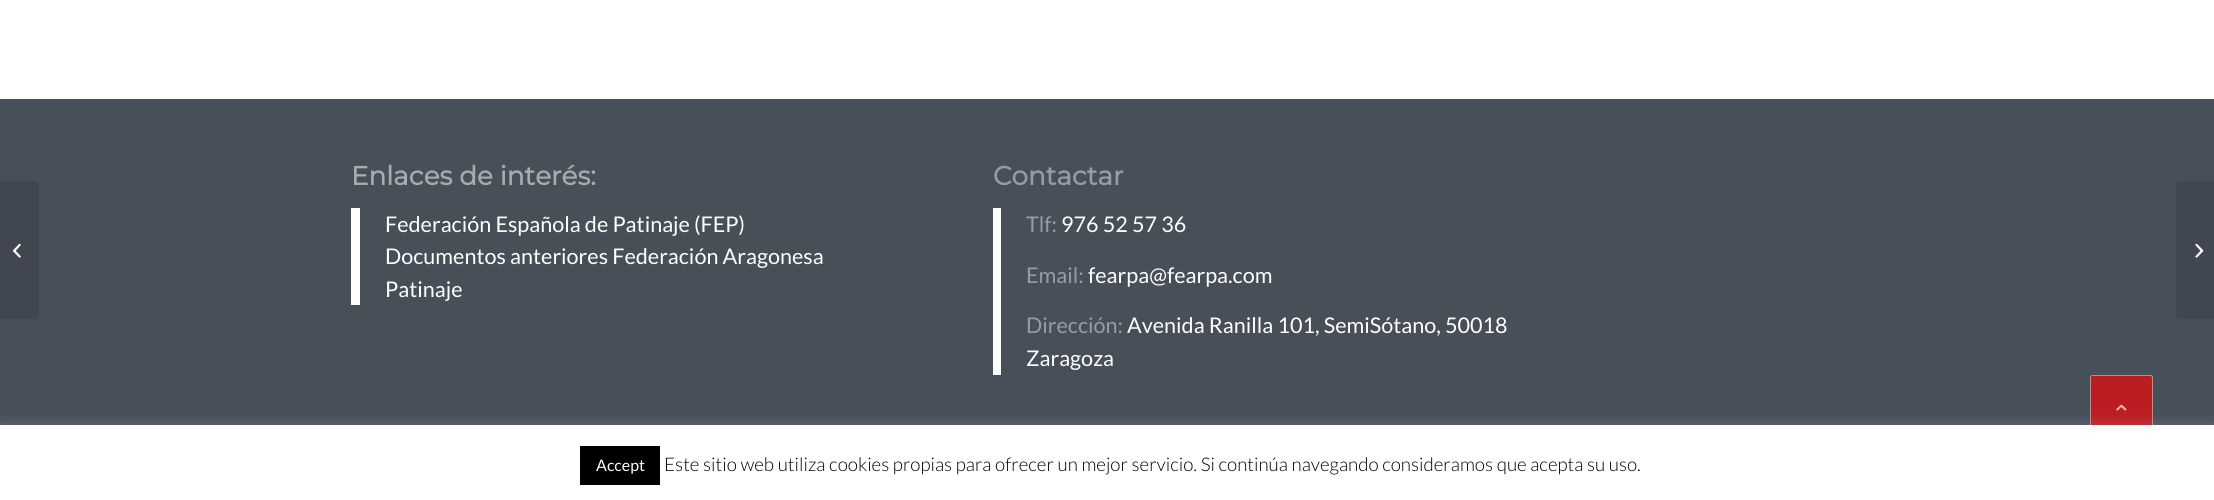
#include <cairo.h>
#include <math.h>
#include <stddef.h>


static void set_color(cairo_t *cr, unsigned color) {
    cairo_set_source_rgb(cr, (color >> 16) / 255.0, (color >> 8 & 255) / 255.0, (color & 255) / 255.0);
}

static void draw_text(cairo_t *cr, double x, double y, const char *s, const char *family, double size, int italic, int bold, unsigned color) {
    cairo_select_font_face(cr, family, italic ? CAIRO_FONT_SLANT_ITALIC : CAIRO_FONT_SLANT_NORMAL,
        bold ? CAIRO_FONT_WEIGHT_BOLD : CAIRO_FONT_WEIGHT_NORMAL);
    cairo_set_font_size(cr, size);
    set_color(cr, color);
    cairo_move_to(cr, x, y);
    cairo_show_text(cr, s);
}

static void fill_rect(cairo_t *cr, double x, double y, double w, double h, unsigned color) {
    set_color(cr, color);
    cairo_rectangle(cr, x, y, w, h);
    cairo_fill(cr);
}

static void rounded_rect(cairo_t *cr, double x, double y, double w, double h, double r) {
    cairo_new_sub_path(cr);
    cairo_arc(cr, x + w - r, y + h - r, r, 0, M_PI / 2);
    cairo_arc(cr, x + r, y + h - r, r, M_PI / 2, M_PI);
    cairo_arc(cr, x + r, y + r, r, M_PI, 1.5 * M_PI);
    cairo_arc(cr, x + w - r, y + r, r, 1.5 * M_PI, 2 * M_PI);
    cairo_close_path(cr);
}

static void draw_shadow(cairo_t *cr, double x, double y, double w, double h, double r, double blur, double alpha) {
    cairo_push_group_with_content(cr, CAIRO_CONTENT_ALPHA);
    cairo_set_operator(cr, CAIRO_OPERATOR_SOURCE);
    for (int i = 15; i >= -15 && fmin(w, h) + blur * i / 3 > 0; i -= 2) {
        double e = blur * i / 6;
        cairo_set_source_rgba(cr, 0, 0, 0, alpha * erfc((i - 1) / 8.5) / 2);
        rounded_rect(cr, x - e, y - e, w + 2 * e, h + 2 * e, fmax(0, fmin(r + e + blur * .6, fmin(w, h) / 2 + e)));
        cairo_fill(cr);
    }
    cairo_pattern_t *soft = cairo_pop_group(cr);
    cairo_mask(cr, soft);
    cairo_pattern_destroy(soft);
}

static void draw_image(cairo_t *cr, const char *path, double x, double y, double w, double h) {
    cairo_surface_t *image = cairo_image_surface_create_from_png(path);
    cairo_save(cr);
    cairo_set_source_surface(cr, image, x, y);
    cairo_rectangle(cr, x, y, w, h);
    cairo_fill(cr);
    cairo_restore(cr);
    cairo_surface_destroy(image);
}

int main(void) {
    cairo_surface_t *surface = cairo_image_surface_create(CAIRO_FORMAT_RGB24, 2214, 500);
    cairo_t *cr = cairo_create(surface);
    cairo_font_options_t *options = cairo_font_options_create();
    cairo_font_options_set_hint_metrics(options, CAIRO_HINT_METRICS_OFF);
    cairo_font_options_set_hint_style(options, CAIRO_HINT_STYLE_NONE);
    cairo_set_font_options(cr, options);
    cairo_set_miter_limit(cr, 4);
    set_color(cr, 0xFFFFFF);
    cairo_paint(cr);
    fill_rect(cr, 0, 99, 2214, 326, 0x474F59);
    set_color(cr, 0x404750);
    cairo_new_path(cr);
    cairo_move_to(cr, 0, 181);
    cairo_line_to(cr, 34, 181);
    cairo_curve_to(cr, 37, 181, 39, 183, 39, 186);
    cairo_line_to(cr, 39, 314);
    cairo_curve_to(cr, 39, 317, 37, 319, 34, 319);
    cairo_line_to(cr, 0, 319);
    cairo_close_path(cr);
    cairo_fill(cr);
    draw_image(cr, "assets/img1.png", 12, 243, 9, 15);
    draw_text(cr, 351, 185, "Enlaces de interés:", "Montserrat", 26.25, 0, 1, 0xA7ABB1);
    fill_rect(cr, 351, 208, 9, 97, 0xFFFFFF);
    draw_text(cr, 385, 232, "Federación Española de Patinaje (FEP)", "Lato", 21.6, 0, 0, 0xFFFFFF);
    draw_text(cr, 385, 264, "Documentos anteriores Federación Aragonesa", "Lato", 21.6, 0, 0, 0xFFFFFF);
    draw_text(cr, 385, 297, "Patinaje", "Lato", 21.6, 0, 0, 0xFFFFFF);
    draw_text(cr, 993, 185, "Contactar", "Montserrat", 26.25, 0, 1, 0x969CA4);
    fill_rect(cr, 993, 208, 8, 167, 0xFFFFFF);
    draw_text(cr, 1026, 232, "Tlf:", "Lato", 21.6, 0, 0, 0x969CA4);
    draw_text(cr, 1061, 232, "976 52 57 36", "Lato", 21.6, 0, 0, 0xFFFFFF);
    draw_text(cr, 1026, 283, "Email:", "Lato", 21.6, 0, 0, 0x969CA4);
    draw_text(cr, 1088, 283, "fearpa@fearpa.com", "Lato", 21.6, 0, 0, 0xFFFFFF);
    draw_text(cr, 1026, 333, "Dirección:", "Lato", 21.6, 0, 0, 0x969CA4);
    draw_text(cr, 1127, 333, "Avenida Ranilla 101, SemiSótano, 50018", "Lato", 21.6, 0, 0, 0xFFFFFF);
    draw_text(cr, 1026, 366, "Zaragoza", "Lato", 21.6, 0, 0, 0xFFFFFF);
    set_color(cr, 0x404750);
    cairo_new_path(cr);
    cairo_move_to(cr, 2181, 181);
    cairo_line_to(cr, 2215, 181);
    cairo_line_to(cr, 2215, 319);
    cairo_line_to(cr, 2181, 319);
    cairo_curve_to(cr, 2178, 319, 2176, 317, 2176, 314);
    cairo_line_to(cr, 2176, 186);
    cairo_curve_to(cr, 2176, 183, 2178, 181, 2181, 181);
    cairo_close_path(cr);
    cairo_fill(cr);
    draw_image(cr, "assets/img2.png", 2195, 243, 9, 15);
    set_color(cr, 0xBA1E21);
    rounded_rect(cr, 2090.5, 375.5, 62, 62, 2);
    cairo_fill_preserve(cr);
    set_color(cr, 0xC18B8E);
    cairo_set_line_width(cr, 1);
    cairo_stroke(cr);
    draw_image(cr, "assets/img3.png", 2116, 404, 11, 7);
    set_color(cr, 0xACABAB);
    draw_shadow(cr, 0, 424, 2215, 75, 0, 6, 0.3);
    fill_rect(cr, 0, 425, 2214, 75, 0xFFFFFF);
    fill_rect(cr, 580, 446, 80, 39, 0x000000);
    draw_text(cr, 596, 471, "Accept", "Lato", 16, 0, 0, 0xFFFFFF);
    draw_text(cr, 664, 471, "Este sitio web utiliza cookies propias para ofrecer un mejor servicio. Si continúa navegando consideramos que acepta su uso.", "Lato Light", 18.75, 0, 0, 0x000000);
    cairo_surface_write_to_png(surface, "output.png");
    cairo_font_options_destroy(options);
    cairo_destroy(cr);
    cairo_surface_destroy(surface);
    return 0;
}
